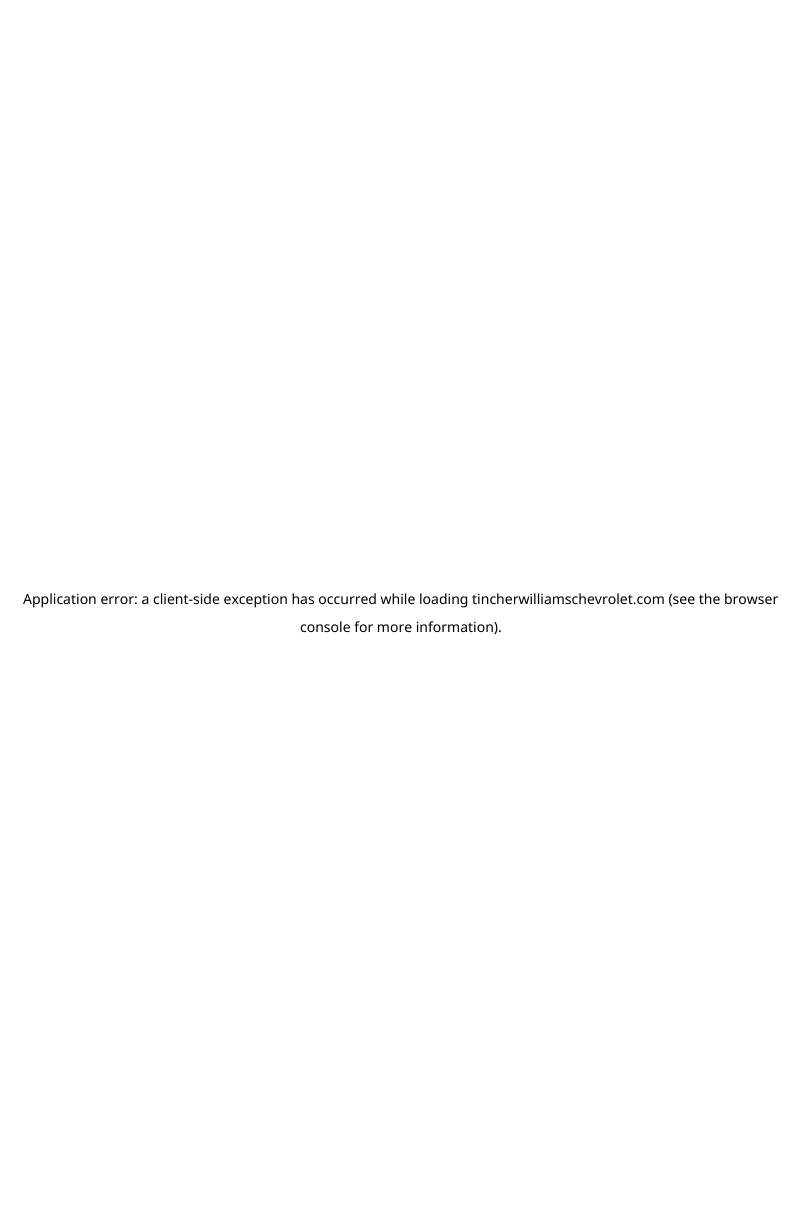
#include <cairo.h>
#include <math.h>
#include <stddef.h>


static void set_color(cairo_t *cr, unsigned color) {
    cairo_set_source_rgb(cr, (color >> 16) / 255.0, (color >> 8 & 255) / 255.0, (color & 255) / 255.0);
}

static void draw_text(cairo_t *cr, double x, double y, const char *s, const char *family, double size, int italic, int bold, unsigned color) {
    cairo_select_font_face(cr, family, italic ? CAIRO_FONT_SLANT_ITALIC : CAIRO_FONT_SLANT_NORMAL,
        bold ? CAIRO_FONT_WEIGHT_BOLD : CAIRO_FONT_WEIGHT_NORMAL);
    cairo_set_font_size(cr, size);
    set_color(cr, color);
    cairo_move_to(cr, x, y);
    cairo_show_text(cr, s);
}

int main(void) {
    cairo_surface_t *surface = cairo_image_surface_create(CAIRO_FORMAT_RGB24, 801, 1225);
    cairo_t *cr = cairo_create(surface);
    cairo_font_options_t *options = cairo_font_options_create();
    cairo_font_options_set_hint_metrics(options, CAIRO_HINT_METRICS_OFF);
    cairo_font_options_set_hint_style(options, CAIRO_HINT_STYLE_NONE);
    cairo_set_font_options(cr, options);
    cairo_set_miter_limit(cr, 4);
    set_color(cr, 0xFFFFFF);
    cairo_paint(cr);
    draw_text(cr, 23, 604, "Application error: a client-side exception has occurred while loading tincherwilliamschevrolet.com (see the browser", "Noto Sans", 14, 0, 0, 0x000000);
    draw_text(cr, 300, 632, "console for more information).", "Noto Sans", 14, 0, 0, 0x000000);
    cairo_surface_write_to_png(surface, "output.png");
    cairo_font_options_destroy(options);
    cairo_destroy(cr);
    cairo_surface_destroy(surface);
    return 0;
}
